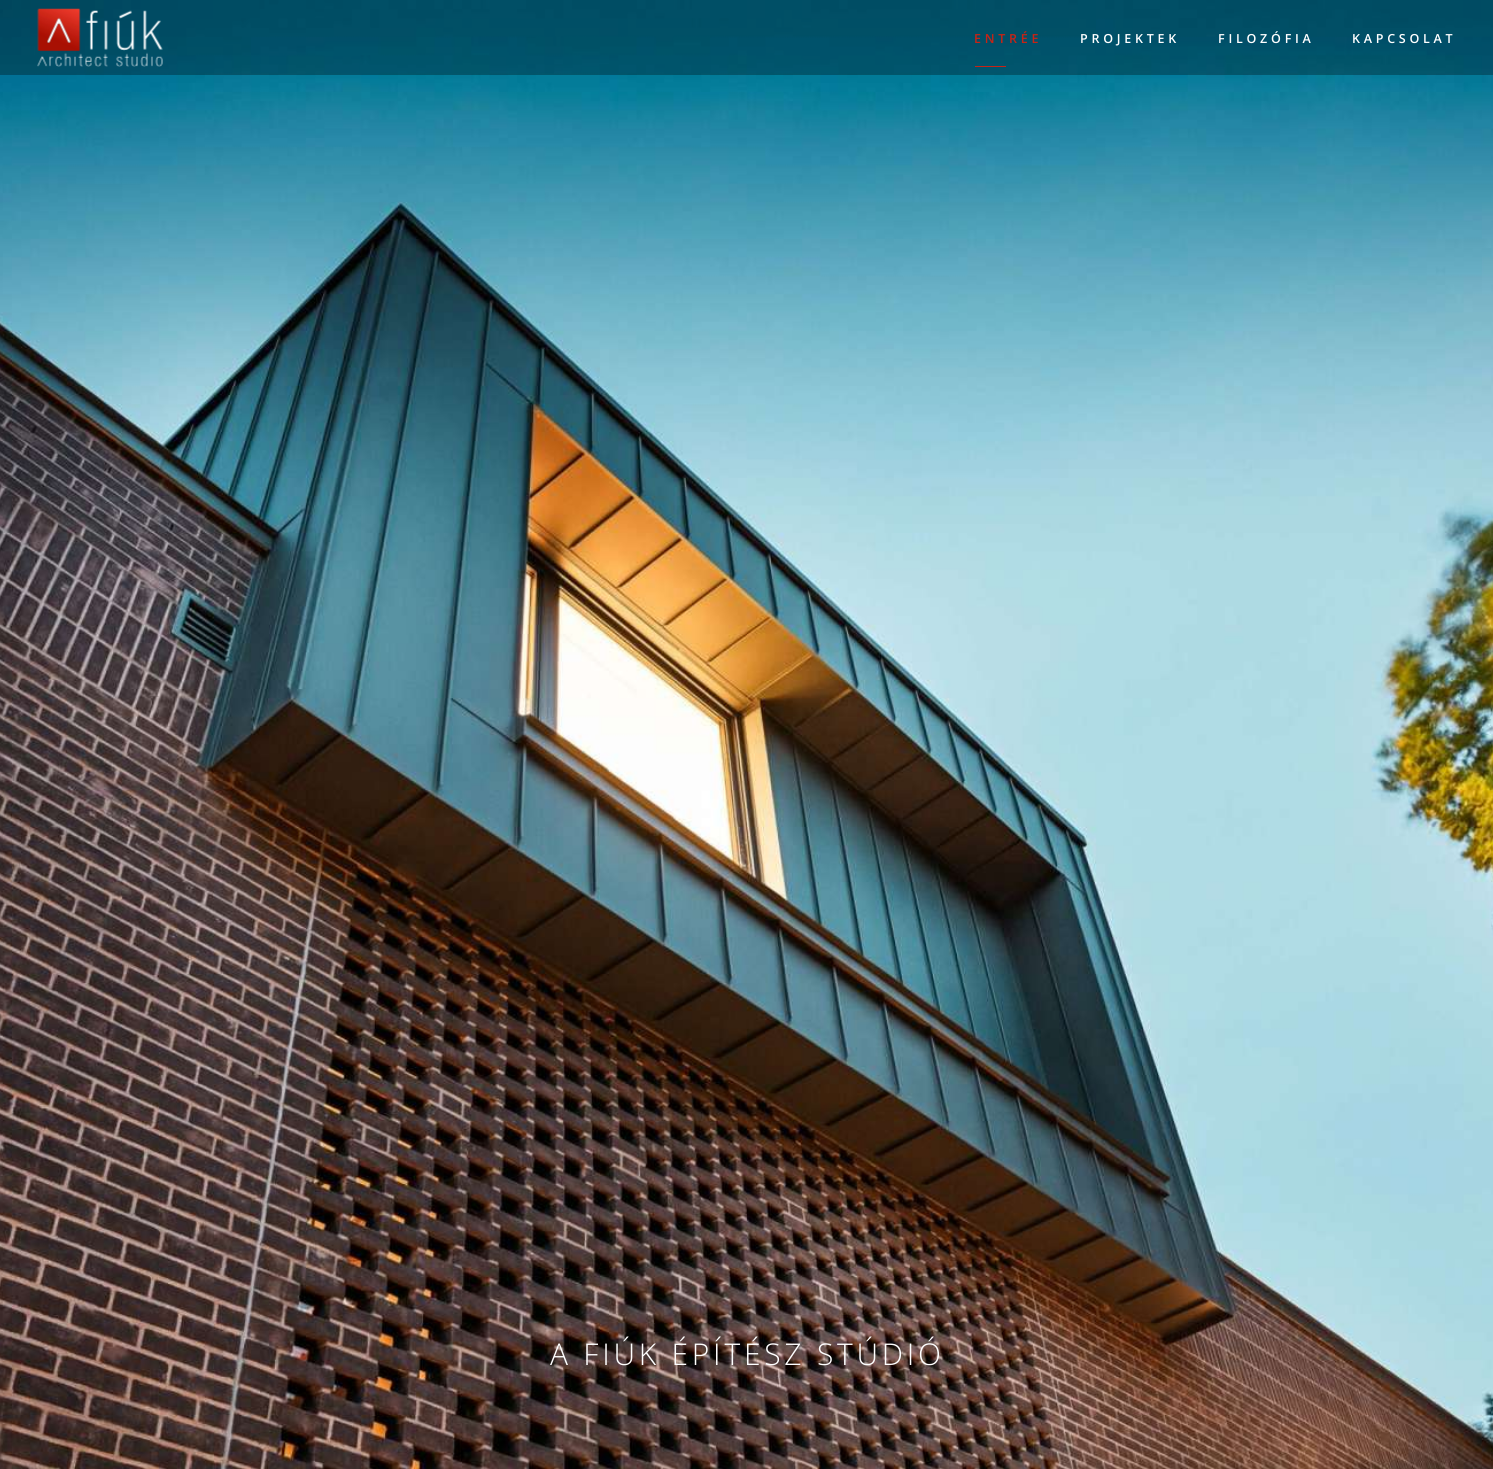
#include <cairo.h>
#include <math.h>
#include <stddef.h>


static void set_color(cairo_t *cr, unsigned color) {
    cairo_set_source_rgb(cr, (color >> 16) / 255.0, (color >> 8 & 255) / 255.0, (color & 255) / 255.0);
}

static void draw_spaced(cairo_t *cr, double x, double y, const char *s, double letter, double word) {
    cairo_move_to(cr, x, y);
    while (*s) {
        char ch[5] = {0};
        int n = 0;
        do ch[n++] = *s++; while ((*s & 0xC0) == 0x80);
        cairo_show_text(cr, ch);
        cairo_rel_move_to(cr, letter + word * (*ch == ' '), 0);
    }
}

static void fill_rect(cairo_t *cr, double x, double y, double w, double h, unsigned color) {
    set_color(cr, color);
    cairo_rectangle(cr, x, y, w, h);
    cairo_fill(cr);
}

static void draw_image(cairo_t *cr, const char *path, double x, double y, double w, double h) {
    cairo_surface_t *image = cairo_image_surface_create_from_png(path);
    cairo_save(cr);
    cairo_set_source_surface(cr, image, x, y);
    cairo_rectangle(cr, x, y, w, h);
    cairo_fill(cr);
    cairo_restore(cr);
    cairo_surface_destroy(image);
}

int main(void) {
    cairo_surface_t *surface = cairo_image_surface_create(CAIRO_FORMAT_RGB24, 1493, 1469);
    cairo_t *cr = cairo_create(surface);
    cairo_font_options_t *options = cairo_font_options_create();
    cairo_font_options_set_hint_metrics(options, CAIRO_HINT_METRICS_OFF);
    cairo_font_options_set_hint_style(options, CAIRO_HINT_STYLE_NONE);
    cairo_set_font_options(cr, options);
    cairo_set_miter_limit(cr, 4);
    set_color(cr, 0xFFFFFF);
    cairo_paint(cr);
    draw_image(cr, "assets/img2.png", 0, 0, 1493, 1469);
    cairo_set_source_rgba(cr, 0, 0, 0, 0.3);
    cairo_rectangle(cr, 0, 0, 1493, 75);
    cairo_fill(cr);
    draw_image(cr, "assets/img1.png", 37, 8, 126, 59);
    cairo_select_font_face(cr, "Open Sans SemiBold", CAIRO_FONT_SLANT_NORMAL, CAIRO_FONT_WEIGHT_NORMAL);
    cairo_set_font_size(cr, 12.5);
    set_color(cr, 0xC82315);
    draw_spaced(cr, 974, 43, "ENTRÉE", 3.75, 0);
    fill_rect(cr, 975, 66, 31, 1, 0xC82315);
    set_color(cr, 0xFFFFFF);
    draw_spaced(cr, 1080, 43, "PROJEKTEK", 3.75, 0);
    draw_spaced(cr, 1218, 43, "FILOZÓFIA", 3.75, 0);
    draw_spaced(cr, 1352, 43, "KAPCSOLAT", 3.75, 0);
    cairo_select_font_face(cr, "Open Sans Light", CAIRO_FONT_SLANT_NORMAL, CAIRO_FONT_WEIGHT_NORMAL);
    cairo_set_font_size(cr, 30);
    draw_spaced(cr, 550, 1365, "A FIÚK ÉPÍTÉSZ STÚDIÓ", 3.75, 0);
    cairo_surface_write_to_png(surface, "output.png");
    cairo_font_options_destroy(options);
    cairo_destroy(cr);
    cairo_surface_destroy(surface);
    return 0;
}
